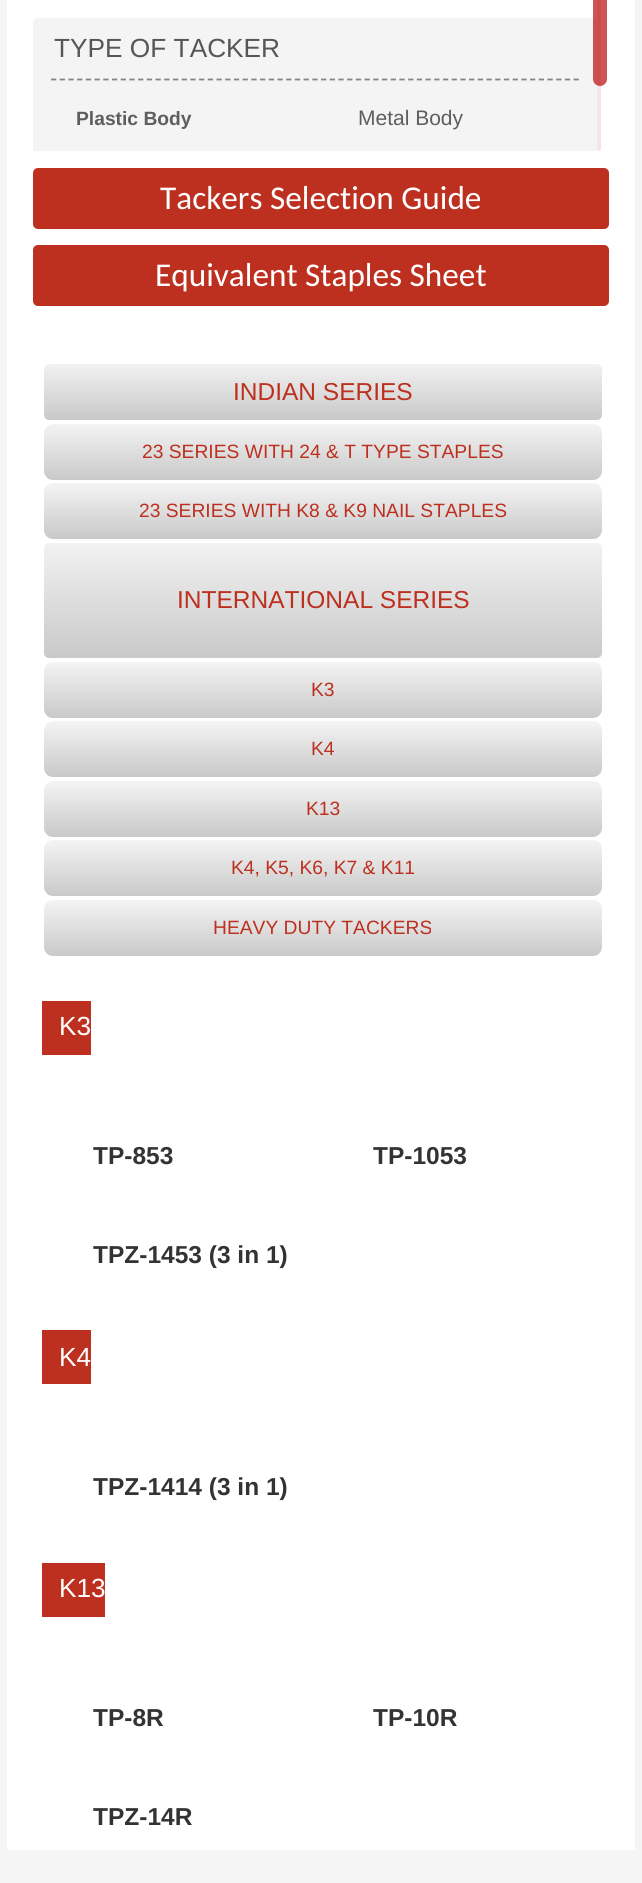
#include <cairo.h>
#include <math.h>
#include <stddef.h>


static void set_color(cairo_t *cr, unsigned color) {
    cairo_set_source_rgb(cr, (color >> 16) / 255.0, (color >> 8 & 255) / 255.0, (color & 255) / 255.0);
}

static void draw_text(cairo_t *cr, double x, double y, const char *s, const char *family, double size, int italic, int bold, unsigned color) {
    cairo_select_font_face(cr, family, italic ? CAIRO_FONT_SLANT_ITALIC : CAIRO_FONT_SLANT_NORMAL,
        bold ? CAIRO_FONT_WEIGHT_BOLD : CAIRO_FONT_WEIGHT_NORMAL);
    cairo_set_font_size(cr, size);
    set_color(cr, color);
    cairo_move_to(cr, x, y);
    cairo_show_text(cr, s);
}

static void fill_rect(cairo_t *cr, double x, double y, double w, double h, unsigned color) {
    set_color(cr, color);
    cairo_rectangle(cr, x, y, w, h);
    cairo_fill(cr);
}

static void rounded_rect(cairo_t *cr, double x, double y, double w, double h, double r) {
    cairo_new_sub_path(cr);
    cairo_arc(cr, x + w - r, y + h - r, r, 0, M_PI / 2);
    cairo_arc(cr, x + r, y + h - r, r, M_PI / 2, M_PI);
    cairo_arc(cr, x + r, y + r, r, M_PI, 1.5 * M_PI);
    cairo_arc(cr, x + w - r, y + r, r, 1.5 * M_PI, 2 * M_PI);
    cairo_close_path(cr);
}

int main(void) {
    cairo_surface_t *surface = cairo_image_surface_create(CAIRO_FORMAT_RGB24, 642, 1883);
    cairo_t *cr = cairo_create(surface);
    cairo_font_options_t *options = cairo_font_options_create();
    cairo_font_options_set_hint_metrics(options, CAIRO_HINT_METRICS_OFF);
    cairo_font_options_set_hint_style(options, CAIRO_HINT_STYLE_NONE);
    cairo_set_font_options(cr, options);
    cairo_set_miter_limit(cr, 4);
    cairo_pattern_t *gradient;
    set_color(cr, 0xF5F5F5);
    cairo_paint(cr);
    fill_rect(cr, 7, 0, 628, 1850, 0xFFFFFF);
    set_color(cr, 0xF4F4F4);
    cairo_new_path(cr);
    cairo_move_to(cr, 38, 18);
    cairo_line_to(cr, 592, 18);
    cairo_curve_to(cr, 595, 18, 597, 20, 597, 23);
    cairo_line_to(cr, 597, 151);
    cairo_line_to(cr, 33, 151);
    cairo_line_to(cr, 33, 23);
    cairo_curve_to(cr, 33, 20, 35, 18, 38, 18);
    cairo_close_path(cr);
    cairo_fill(cr);
    cairo_new_path(cr);
    cairo_move_to(cr, 51, 79.5);
    cairo_line_to(cr, 579, 79.5);
    set_color(cr, 0x848484);
    cairo_set_line_width(cr, 1.8);
    cairo_set_dash(cr, (double[]){5.25, 3.46}, 2, 0);
    cairo_stroke(cr);
    draw_text(cr, 54, 57, "TYPE OF TACKER", "Liberation Sans", 26.25, 0, 0, 0x565656);
    draw_text(cr, 76, 125, "Plastic Body", "Liberation Sans", 19.25, 0, 1, 0x5F5E5E);
    draw_text(cr, 358, 125, "Metal Body", "Liberation Sans", 21, 0, 0, 0x5F5E5E);
    set_color(cr, 0xF4E6E6);
    rounded_rect(cr, 597, -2, 4, 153, 2);
    cairo_fill(cr);
    cairo_set_source_rgba(cr, 0.749, 0.102, 0.102, 0.75);
    rounded_rect(cr, 593, -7, 14, 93, 7);
    cairo_fill(cr);
    set_color(cr, 0xBD301F);
    rounded_rect(cr, 33, 168, 576, 61, 5);
    cairo_fill(cr);
    draw_text(cr, 160, 209, "Tackers Selection Guide", "Carlito", 33.25, 0, 0, 0xFFFFFF);
    set_color(cr, 0xBD301F);
    rounded_rect(cr, 33, 245, 576, 61, 5);
    cairo_fill(cr);
    draw_text(cr, 155, 286, "Equivalent Staples Sheet", "Carlito", 33.25, 0, 0, 0xFFFFFF);
    gradient = cairo_pattern_create_linear(323, 364, 323, 420);
    cairo_pattern_add_color_stop_rgba(gradient, 0, 0.949, 0.949, 0.949, 1);
    cairo_pattern_add_color_stop_rgba(gradient, 1, 0.788, 0.788, 0.788, 1);
    cairo_set_source(cr, gradient);
    cairo_pattern_destroy(gradient);
    rounded_rect(cr, 44, 364, 558, 56, 5);
    cairo_fill(cr);
    draw_text(cr, 233, 400, "INDIAN SERIES", "Liberation Sans", 24.5, 0, 0, 0xBD301F);
    gradient = cairo_pattern_create_linear(323, 423, 323, 480);
    cairo_pattern_add_color_stop_rgba(gradient, 0, 0.957, 0.957, 0.957, 1);
    cairo_pattern_add_color_stop_rgba(gradient, 1, 0.788, 0.788, 0.788, 1);
    cairo_set_source(cr, gradient);
    cairo_pattern_destroy(gradient);
    rounded_rect(cr, 44, 424, 558, 56, 9);
    cairo_fill(cr);
    draw_text(cr, 142, 458, "23 SERIES WITH 24 & T TYPE STAPLES", "Liberation Sans", 19.25, 0, 0, 0xBD301F);
    gradient = cairo_pattern_create_linear(323, 483, 323, 539);
    cairo_pattern_add_color_stop_rgba(gradient, 0, 0.957, 0.957, 0.957, 1);
    cairo_pattern_add_color_stop_rgba(gradient, 1, 0.788, 0.788, 0.788, 1);
    cairo_set_source(cr, gradient);
    cairo_pattern_destroy(gradient);
    rounded_rect(cr, 44, 483, 558, 56, 9);
    cairo_fill(cr);
    draw_text(cr, 139, 517, "23 SERIES WITH K8 & K9 NAIL STAPLES", "Liberation Sans", 19.25, 0, 0, 0xBD301F);
    gradient = cairo_pattern_create_linear(323, 543, 323, 658);
    cairo_pattern_add_color_stop_rgba(gradient, 0, 0.949, 0.949, 0.949, 1);
    cairo_pattern_add_color_stop_rgba(gradient, 1, 0.788, 0.788, 0.788, 1);
    cairo_set_source(cr, gradient);
    cairo_pattern_destroy(gradient);
    rounded_rect(cr, 44, 543, 558, 115, 5);
    cairo_fill(cr);
    draw_text(cr, 177, 608, "INTERNATIONAL SERIES", "Liberation Sans", 24.5, 0, 0, 0xBD301F);
    gradient = cairo_pattern_create_linear(323, 662, 323, 718);
    cairo_pattern_add_color_stop_rgba(gradient, 0, 0.957, 0.957, 0.957, 1);
    cairo_pattern_add_color_stop_rgba(gradient, 1, 0.788, 0.788, 0.788, 1);
    cairo_set_source(cr, gradient);
    cairo_pattern_destroy(gradient);
    rounded_rect(cr, 44, 662, 558, 56, 9);
    cairo_fill(cr);
    draw_text(cr, 311, 696, "K3", "Liberation Sans", 19.25, 0, 0, 0xBD301F);
    gradient = cairo_pattern_create_linear(323, 721, 323, 777);
    cairo_pattern_add_color_stop_rgba(gradient, 0, 0.957, 0.957, 0.957, 1);
    cairo_pattern_add_color_stop_rgba(gradient, 1, 0.788, 0.788, 0.788, 1);
    cairo_set_source(cr, gradient);
    cairo_pattern_destroy(gradient);
    rounded_rect(cr, 44, 721, 558, 56, 9);
    cairo_fill(cr);
    draw_text(cr, 311, 755, "K4", "Liberation Sans", 19.25, 0, 0, 0xBD301F);
    gradient = cairo_pattern_create_linear(323, 781, 323, 837);
    cairo_pattern_add_color_stop_rgba(gradient, 0, 0.957, 0.957, 0.957, 1);
    cairo_pattern_add_color_stop_rgba(gradient, 1, 0.788, 0.788, 0.788, 1);
    cairo_set_source(cr, gradient);
    cairo_pattern_destroy(gradient);
    rounded_rect(cr, 44, 781, 558, 56, 9);
    cairo_fill(cr);
    draw_text(cr, 306, 815, "K13", "Liberation Sans", 19.25, 0, 0, 0xBD301F);
    gradient = cairo_pattern_create_linear(323, 840, 323, 896);
    cairo_pattern_add_color_stop_rgba(gradient, 0, 0.957, 0.957, 0.957, 1);
    cairo_pattern_add_color_stop_rgba(gradient, 1, 0.788, 0.788, 0.788, 1);
    cairo_set_source(cr, gradient);
    cairo_pattern_destroy(gradient);
    rounded_rect(cr, 44, 840, 558, 56, 9);
    cairo_fill(cr);
    draw_text(cr, 231, 874, "K4, K5, K6, K7 & K11", "Liberation Sans", 19.25, 0, 0, 0xBD301F);
    gradient = cairo_pattern_create_linear(323, 900, 323, 956);
    cairo_pattern_add_color_stop_rgba(gradient, 0, 0.957, 0.957, 0.957, 1);
    cairo_pattern_add_color_stop_rgba(gradient, 1, 0.788, 0.788, 0.788, 1);
    cairo_set_source(cr, gradient);
    cairo_pattern_destroy(gradient);
    rounded_rect(cr, 44, 900, 558, 56, 9);
    cairo_fill(cr);
    draw_text(cr, 213, 934, "HEAVY DUTY TACKERS", "Liberation Sans", 19.25, 0, 0, 0xBD301F);
    fill_rect(cr, 42, 1001, 49, 54, 0xBD301F);
    draw_text(cr, 59, 1035, "K3", "Liberation Sans", 26.25, 0, 0, 0xFFFFFF);
    draw_text(cr, 93, 1164, "TP-853", "Liberation Sans", 24.5, 0, 1, 0x333333);
    draw_text(cr, 373, 1164, "TP-1053", "Liberation Sans", 24.5, 0, 1, 0x333333);
    draw_text(cr, 93, 1263, "TPZ-1453 (3 in 1)", "Liberation Sans", 24.5, 0, 1, 0x333333);
    fill_rect(cr, 42, 1330, 49, 54, 0xBD301F);
    draw_text(cr, 59, 1366, "K4", "Liberation Sans", 26.25, 0, 0, 0xFFFFFF);
    draw_text(cr, 93, 1495, "TPZ-1414 (3 in 1)", "Liberation Sans", 24.5, 0, 1, 0x333333);
    fill_rect(cr, 42, 1563, 63, 54, 0xBD301F);
    draw_text(cr, 59, 1597, "K13", "Liberation Sans", 26.25, 0, 0, 0xFFFFFF);
    draw_text(cr, 93, 1726, "TP-8R", "Liberation Sans", 24.5, 0, 1, 0x333333);
    draw_text(cr, 373, 1726, "TP-10R", "Liberation Sans", 24.5, 0, 1, 0x333333);
    draw_text(cr, 93, 1825, "TPZ-14R", "Liberation Sans", 24.5, 0, 1, 0x333333);
    cairo_surface_write_to_png(surface, "output.png");
    cairo_font_options_destroy(options);
    cairo_destroy(cr);
    cairo_surface_destroy(surface);
    return 0;
}
